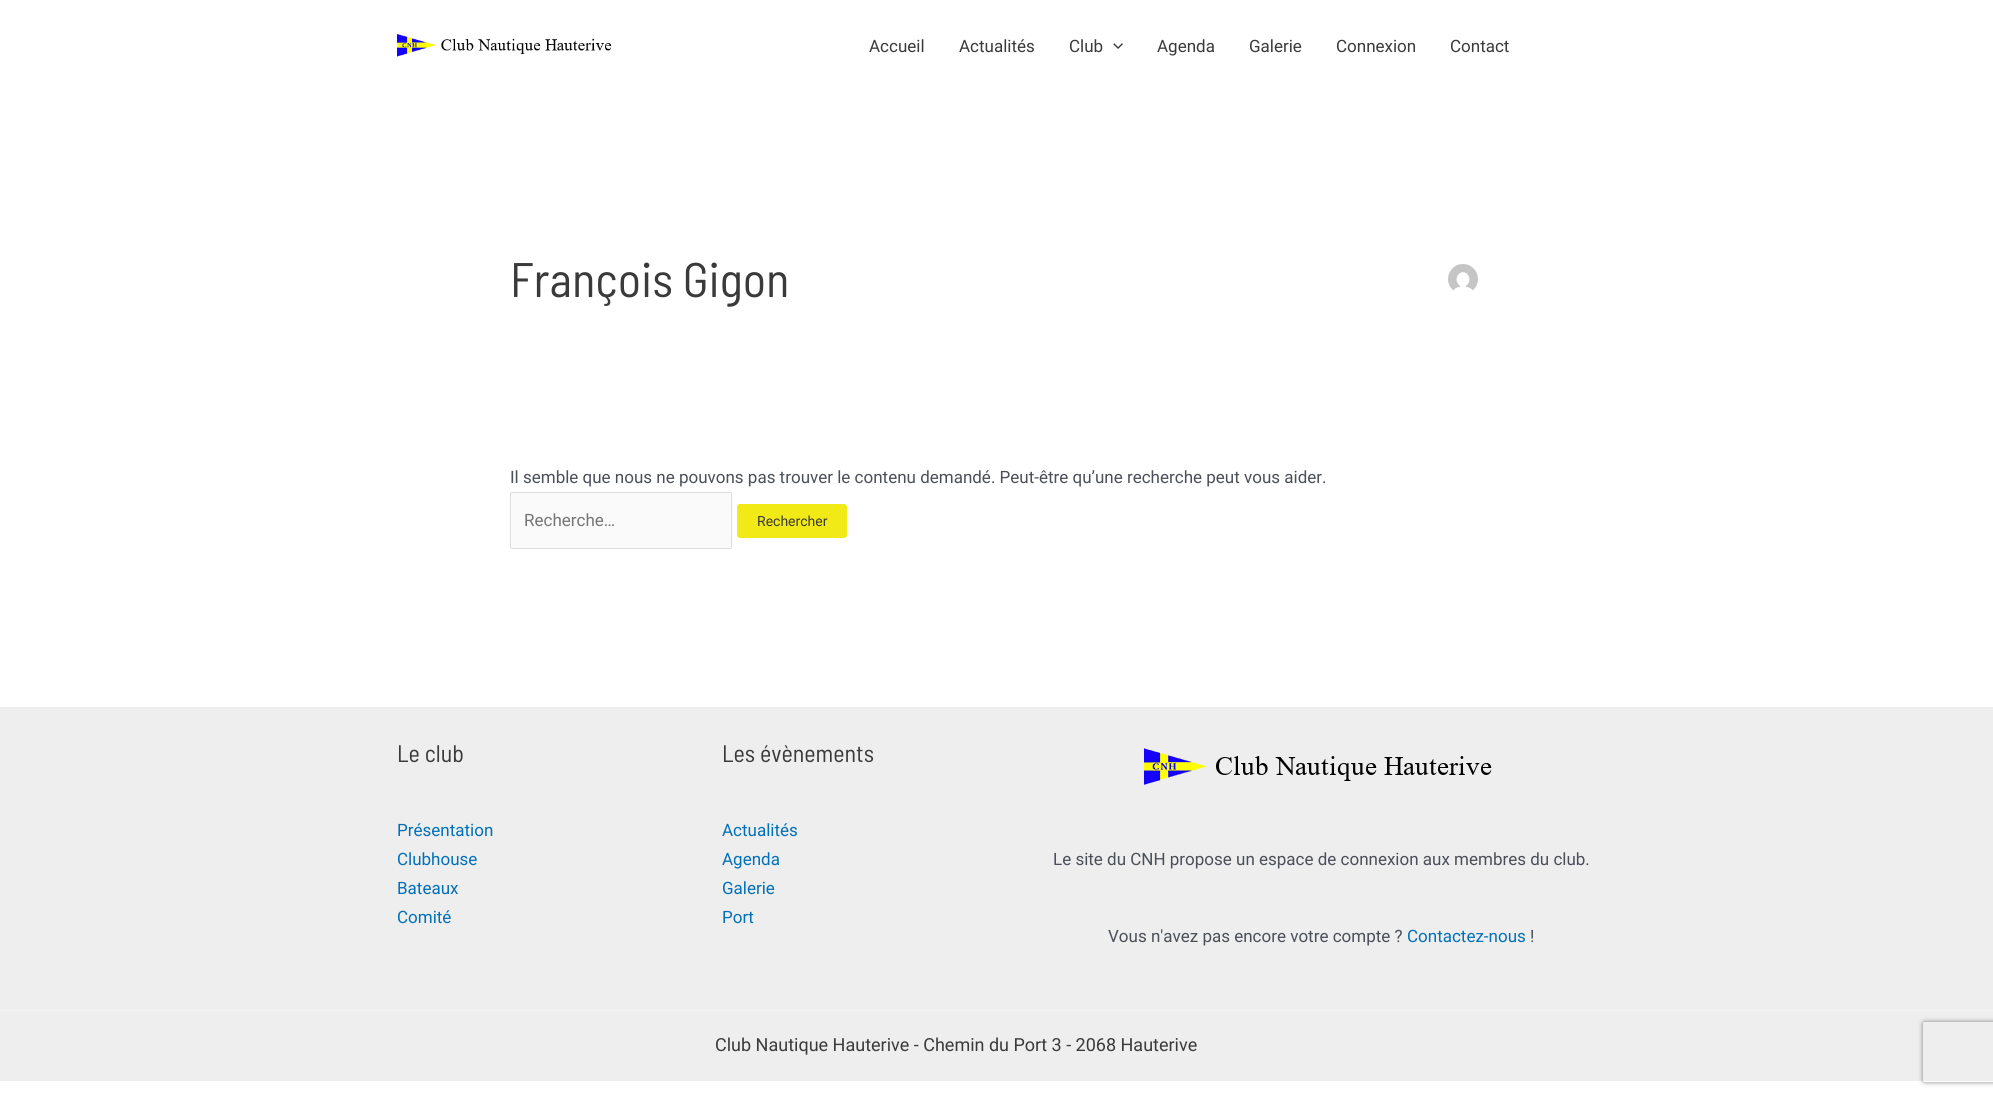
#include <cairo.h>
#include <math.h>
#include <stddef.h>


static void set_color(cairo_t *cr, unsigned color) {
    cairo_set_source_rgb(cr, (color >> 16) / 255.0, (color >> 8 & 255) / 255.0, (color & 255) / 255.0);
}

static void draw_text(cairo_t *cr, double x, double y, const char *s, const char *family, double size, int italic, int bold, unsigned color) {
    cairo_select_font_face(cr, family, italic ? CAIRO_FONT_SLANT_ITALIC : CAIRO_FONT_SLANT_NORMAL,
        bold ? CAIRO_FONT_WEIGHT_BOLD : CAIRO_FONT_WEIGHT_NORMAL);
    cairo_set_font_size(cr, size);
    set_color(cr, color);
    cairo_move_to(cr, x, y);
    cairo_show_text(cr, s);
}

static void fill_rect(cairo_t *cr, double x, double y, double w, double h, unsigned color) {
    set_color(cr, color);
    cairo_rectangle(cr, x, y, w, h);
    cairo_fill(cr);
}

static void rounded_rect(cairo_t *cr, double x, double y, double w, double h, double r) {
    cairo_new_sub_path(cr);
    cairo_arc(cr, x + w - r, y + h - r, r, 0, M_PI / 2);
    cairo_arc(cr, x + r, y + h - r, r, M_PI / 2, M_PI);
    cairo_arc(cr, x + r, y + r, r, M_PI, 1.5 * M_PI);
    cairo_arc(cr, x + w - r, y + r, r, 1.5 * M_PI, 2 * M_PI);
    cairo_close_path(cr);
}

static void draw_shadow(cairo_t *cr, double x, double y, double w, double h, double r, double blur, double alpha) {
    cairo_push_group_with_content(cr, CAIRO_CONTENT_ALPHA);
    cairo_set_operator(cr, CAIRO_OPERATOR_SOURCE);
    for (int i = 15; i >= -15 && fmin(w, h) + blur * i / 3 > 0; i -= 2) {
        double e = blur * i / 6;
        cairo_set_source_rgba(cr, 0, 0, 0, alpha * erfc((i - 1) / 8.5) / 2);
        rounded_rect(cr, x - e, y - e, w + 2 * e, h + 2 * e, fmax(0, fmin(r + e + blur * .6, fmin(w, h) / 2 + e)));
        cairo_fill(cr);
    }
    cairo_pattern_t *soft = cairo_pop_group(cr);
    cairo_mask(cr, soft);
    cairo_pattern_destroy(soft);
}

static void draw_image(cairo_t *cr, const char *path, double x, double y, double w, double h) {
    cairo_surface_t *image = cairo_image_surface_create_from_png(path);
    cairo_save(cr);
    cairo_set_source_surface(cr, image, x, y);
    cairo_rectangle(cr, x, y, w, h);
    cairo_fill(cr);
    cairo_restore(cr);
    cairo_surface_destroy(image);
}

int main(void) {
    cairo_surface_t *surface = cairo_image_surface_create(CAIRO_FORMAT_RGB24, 1993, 1096);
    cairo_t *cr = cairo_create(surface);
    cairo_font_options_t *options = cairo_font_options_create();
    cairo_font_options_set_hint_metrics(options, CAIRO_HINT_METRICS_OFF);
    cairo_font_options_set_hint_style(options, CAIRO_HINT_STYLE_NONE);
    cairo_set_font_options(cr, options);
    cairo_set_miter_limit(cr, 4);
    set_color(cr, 0xFFFFFF);
    cairo_paint(cr);
    draw_image(cr, "assets/img1.png", 397, 34, 215, 23);
    draw_text(cr, 869, 52, "Accueil", "Roboto", 17, 0, 0, 0x3A3A3A);
    draw_text(cr, 959, 52, "Actualités", "Roboto", 17, 0, 0, 0x3A3A3A);
    draw_text(cr, 1069, 52, "Club", "Roboto", 17, 0, 0, 0x3A3A3A);
    draw_image(cr, "assets/img2.png", 1113, 43, 10, 6);
    draw_text(cr, 1157, 52, "Agenda", "Roboto", 17, 0, 0, 0x3A3A3A);
    draw_text(cr, 1249, 52, "Galerie", "Roboto", 17, 0, 0, 0x3A3A3A);
    draw_text(cr, 1336, 52, "Connexion", "Roboto", 17, 0, 0, 0x3A3A3A);
    draw_text(cr, 1450, 52, "Contact", "Roboto", 17, 0, 0, 0x3A3A3A);
    draw_text(cr, 510, 297, "François Gigon", "Barlow Semi Condensed", 48.5, 0, 0, 0x3A3A3A);
    draw_image(cr, "assets/img3.png", 1448, 264, 30, 27);
    draw_text(cr, 510, 483, "Il semble que nous ne pouvons pas trouver le contenu demandé. Peut-être qu’une recherche peut vous aider.", "Roboto", 17, 0, 0, 0x4B4F58);
    set_color(cr, 0xFAFAFA);
    rounded_rect(cr, 510.5, 492.5, 221, 56, 1.5);
    cairo_fill_preserve(cr);
    set_color(cr, 0xDDDDDD);
    cairo_set_line_width(cr, 1);
    cairo_stroke(cr);
    draw_text(cr, 524, 526, "Recherche…", "Roboto", 17, 0, 0, 0x757575);
    set_color(cr, 0xF1EA17);
    rounded_rect(cr, 737, 504, 110, 34, 3);
    cairo_fill(cr);
    draw_text(cr, 757, 526, "Rechercher", "Roboto", 14, 0, 0, 0x3A3A3A);
    fill_rect(cr, 0, 707, 1993, 303, 0xEEEEEE);
    draw_text(cr, 397, 762, "Le club", "Barlow Semi Condensed", 24, 0, 0, 0x3A3A3A);
    draw_text(cr, 397, 836, "Présentation", "Roboto", 17, 0, 0, 0x0170B9);
    draw_text(cr, 397, 865, "Clubhouse", "Roboto", 17, 0, 0, 0x0170B9);
    draw_text(cr, 397, 894, "Bateaux", "Roboto", 17, 0, 0, 0x0170B9);
    draw_text(cr, 397, 923, "Comité", "Roboto", 17, 0, 0, 0x0170B9);
    draw_text(cr, 722, 762, "Les évènements", "Barlow Semi Condensed", 24, 0, 0, 0x3A3A3A);
    draw_text(cr, 722, 836, "Actualités", "Roboto", 17, 0, 0, 0x0170B9);
    draw_text(cr, 722, 865, "Agenda", "Roboto", 17, 0, 0, 0x0170B9);
    draw_text(cr, 722, 894, "Galerie", "Roboto", 17, 0, 0, 0x0170B9);
    draw_text(cr, 722, 923, "Port", "Roboto", 17, 0, 0, 0x0170B9);
    draw_image(cr, "assets/img4.png", 1144, 748, 348, 37);
    draw_text(cr, 1053, 865, "Le site du CNH propose un espace de connexion aux membres du club.", "Roboto", 17, 0, 0, 0x4B4F58);
    draw_text(cr, 1108, 942, "Vous n'avez pas encore votre compte ?", "Roboto", 17, 0, 0, 0x4B4F58);
    draw_text(cr, 1407, 942, "Contactez-nous", "Roboto", 17, 0, 0, 0x0170B9);
    draw_text(cr, 1530, 942, "!", "Roboto", 17, 0, 0, 0x4B4F58);
    fill_rect(cr, 0, 1011, 1993, 70, 0xEEEEEE);
    fill_rect(cr, 0, 1010, 1993, 1, 0xF2F5F7);
    draw_text(cr, 715, 1051, "Club Nautique Hauterive - Chemin du Port 3 - 2068 Hauterive", "Roboto", 18, 0, 0, 0x3A3A3A);
    cairo_save(cr);
    cairo_set_fill_rule(cr, CAIRO_FILL_RULE_EVEN_ODD);
    cairo_new_path(cr);
    cairo_move_to(cr, 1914, 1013);
    cairo_line_to(cr, 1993, 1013);
    cairo_line_to(cr, 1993, 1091);
    cairo_line_to(cr, 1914, 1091);
    cairo_close_path(cr);
    cairo_move_to(cr, 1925, 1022);
    cairo_line_to(cr, 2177, 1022);
    cairo_curve_to(cr, 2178, 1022, 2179, 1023, 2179, 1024);
    cairo_line_to(cr, 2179, 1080);
    cairo_curve_to(cr, 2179, 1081, 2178, 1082, 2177, 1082);
    cairo_line_to(cr, 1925, 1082);
    cairo_curve_to(cr, 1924, 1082, 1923, 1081, 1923, 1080);
    cairo_line_to(cr, 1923, 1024);
    cairo_curve_to(cr, 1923, 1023, 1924, 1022, 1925, 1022);
    cairo_close_path(cr);
    cairo_clip(cr);
    set_color(cr, 0x808080);
    draw_shadow(cr, 1923, 1022, 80, 60, 2, 2.5, 1);
    cairo_restore(cr);
    cairo_surface_write_to_png(surface, "output.png");
    cairo_font_options_destroy(options);
    cairo_destroy(cr);
    cairo_surface_destroy(surface);
    return 0;
}
